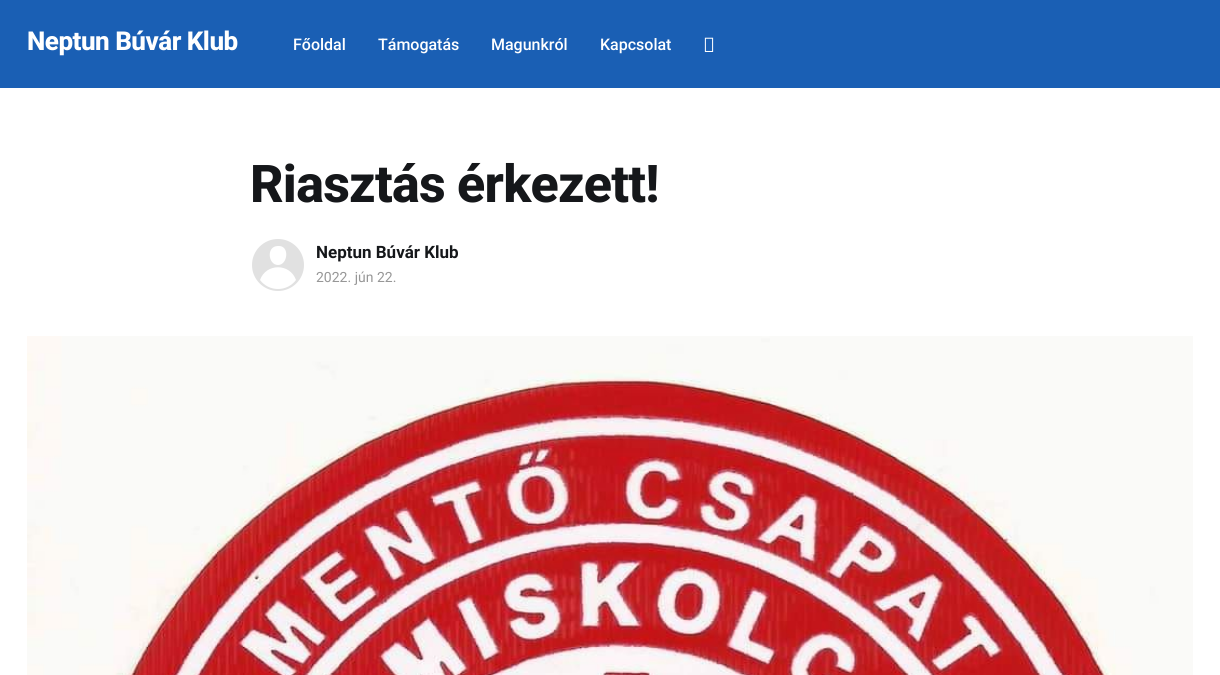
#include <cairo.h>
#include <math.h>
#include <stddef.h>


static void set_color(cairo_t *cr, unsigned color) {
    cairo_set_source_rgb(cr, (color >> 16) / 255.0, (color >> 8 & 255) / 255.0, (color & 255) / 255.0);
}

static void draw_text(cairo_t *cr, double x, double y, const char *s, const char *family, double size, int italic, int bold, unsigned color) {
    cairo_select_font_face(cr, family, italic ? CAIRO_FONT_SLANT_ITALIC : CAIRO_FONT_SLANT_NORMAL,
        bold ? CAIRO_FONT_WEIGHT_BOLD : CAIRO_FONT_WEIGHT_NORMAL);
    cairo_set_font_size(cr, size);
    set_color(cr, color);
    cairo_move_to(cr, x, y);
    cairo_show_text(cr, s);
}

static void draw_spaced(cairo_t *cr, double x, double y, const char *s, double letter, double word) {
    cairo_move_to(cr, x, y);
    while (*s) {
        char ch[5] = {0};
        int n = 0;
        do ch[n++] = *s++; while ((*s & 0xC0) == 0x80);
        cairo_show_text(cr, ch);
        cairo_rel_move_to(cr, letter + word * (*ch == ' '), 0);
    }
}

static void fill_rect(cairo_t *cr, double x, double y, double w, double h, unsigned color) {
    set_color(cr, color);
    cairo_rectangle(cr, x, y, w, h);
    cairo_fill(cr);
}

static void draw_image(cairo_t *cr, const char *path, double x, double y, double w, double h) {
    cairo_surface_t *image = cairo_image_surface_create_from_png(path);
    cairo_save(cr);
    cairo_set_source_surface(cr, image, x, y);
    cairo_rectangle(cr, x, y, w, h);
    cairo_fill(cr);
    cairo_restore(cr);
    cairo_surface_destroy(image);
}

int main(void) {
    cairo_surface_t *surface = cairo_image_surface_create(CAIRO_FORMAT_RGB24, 1220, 675);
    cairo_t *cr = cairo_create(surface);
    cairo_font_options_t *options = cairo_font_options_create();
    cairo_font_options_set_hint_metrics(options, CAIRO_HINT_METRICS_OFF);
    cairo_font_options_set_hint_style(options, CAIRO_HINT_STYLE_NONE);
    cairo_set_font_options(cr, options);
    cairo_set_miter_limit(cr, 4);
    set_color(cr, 0xFFFFFF);
    cairo_paint(cr);
    fill_rect(cr, 0, 0, 1220, 88, 0x1A5FB4);
    cairo_select_font_face(cr, "Roboto ExtraBold", CAIRO_FONT_SLANT_NORMAL, CAIRO_FONT_WEIGHT_NORMAL);
    cairo_set_font_size(cr, 26);
    set_color(cr, 0xFFFFFF);
    draw_spaced(cr, 27, 50, "Neptun Búvár Klub", -0.5, 0);
    draw_text(cr, 293, 50, "Főoldal", "Roboto Medium", 16, 0, 0, 0xFFFFFF);
    draw_text(cr, 378, 50, "Támogatás", "Roboto Medium", 16, 0, 0, 0xFFFFFF);
    draw_text(cr, 491, 50, "Magunkról", "Roboto Medium", 16, 0, 0, 0xFFFFFF);
    draw_text(cr, 600, 50, "Kapcsolat", "Roboto Medium", 16, 0, 0, 0xFFFFFF);
    draw_image(cr, "assets/img1.png", 704, 37, 10, 15);
    cairo_select_font_face(cr, "Roboto ExtraBold", CAIRO_FONT_SLANT_NORMAL, CAIRO_FONT_WEIGHT_NORMAL);
    cairo_set_font_size(cr, 52);
    set_color(cr, 0x15171A);
    draw_spaced(cr, 250, 202, "Riasztás érkezett!", -0.75, 0);
    set_color(cr, 0xE1E1E1);
    cairo_new_path(cr);
    cairo_arc(cr, 278, 265, 27, 0, 2 * M_PI);
    cairo_fill_preserve(cr);
    set_color(cr, 0xFFFFFF);
    cairo_stroke(cr);
    cairo_set_fill_rule(cr, CAIRO_FILL_RULE_EVEN_ODD);
    cairo_new_path(cr);
    cairo_move_to(cr, 260, 280);
    cairo_curve_to(cr, 266, 263, 290, 263, 296, 280);
    cairo_curve_to(cr, 287, 292, 269, 292, 260, 280);
    cairo_close_path(cr);
    cairo_move_to(cr, 278, 265);
    cairo_curve_to(cr, 288, 265, 290, 245, 278, 246);
    cairo_curve_to(cr, 266, 246, 268, 265, 278, 265);
    cairo_close_path(cr);
    cairo_fill(cr);
    draw_text(cr, 316, 258, "Neptun Búvár Klub", "Roboto", 17, 0, 1, 0x15171A);
    draw_text(cr, 316, 282, "2022. jún 22.", "Roboto", 14, 0, 0, 0x979797);
    draw_image(cr, "assets/img2.png", 27, 336, 1166, 339);
    cairo_surface_write_to_png(surface, "output.png");
    cairo_font_options_destroy(options);
    cairo_destroy(cr);
    cairo_surface_destroy(surface);
    return 0;
}
